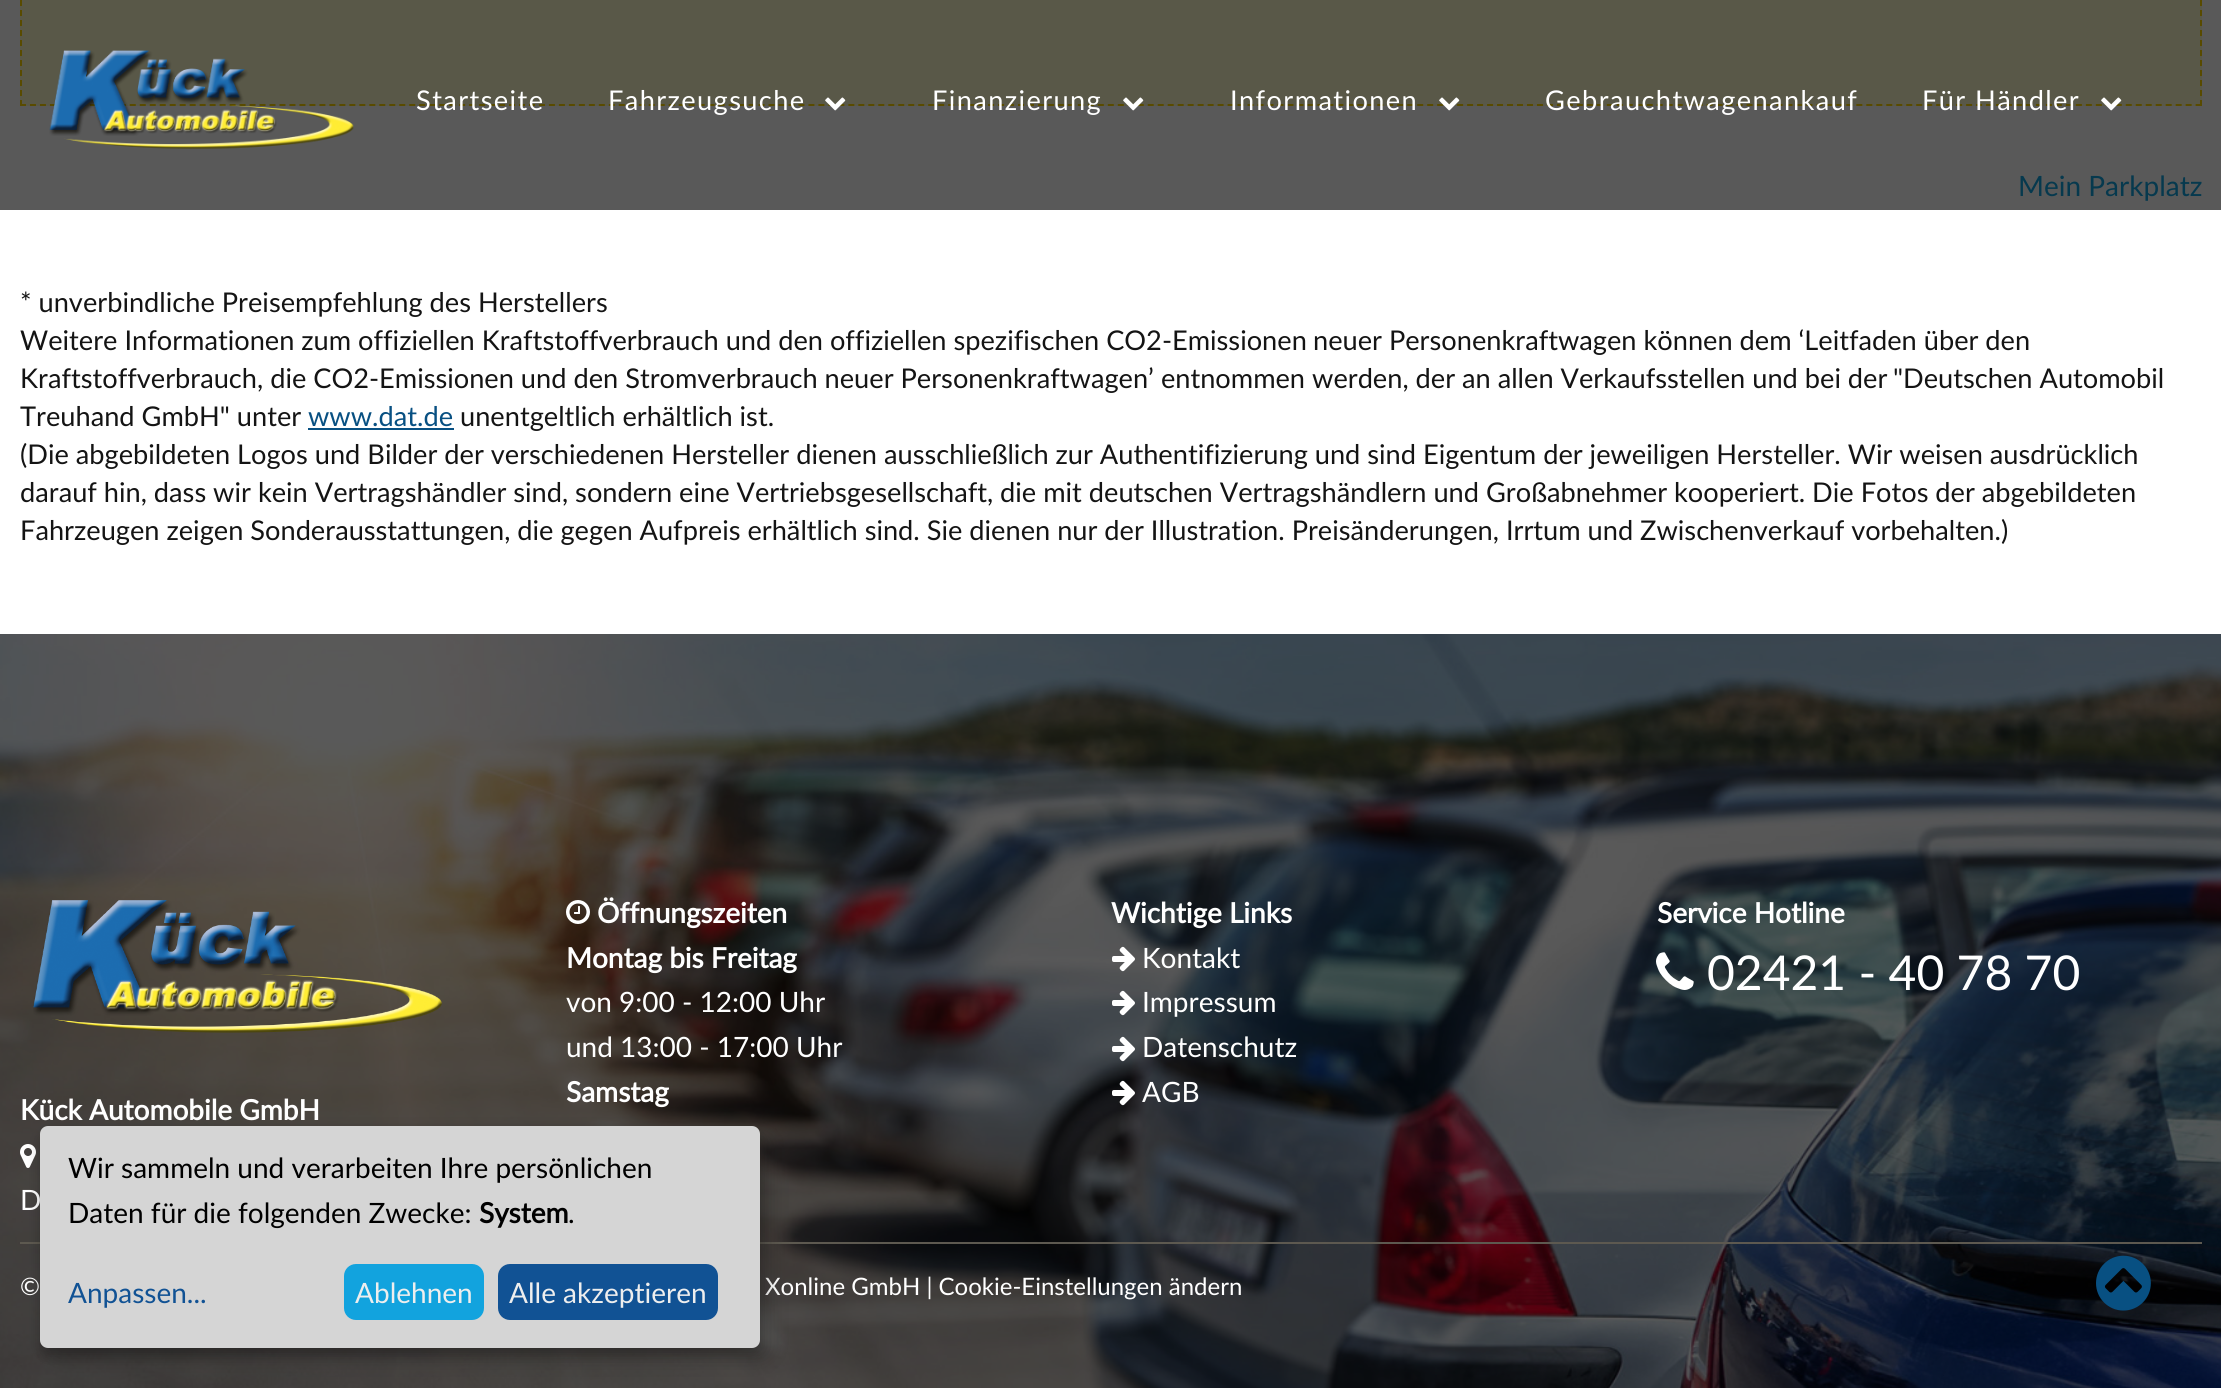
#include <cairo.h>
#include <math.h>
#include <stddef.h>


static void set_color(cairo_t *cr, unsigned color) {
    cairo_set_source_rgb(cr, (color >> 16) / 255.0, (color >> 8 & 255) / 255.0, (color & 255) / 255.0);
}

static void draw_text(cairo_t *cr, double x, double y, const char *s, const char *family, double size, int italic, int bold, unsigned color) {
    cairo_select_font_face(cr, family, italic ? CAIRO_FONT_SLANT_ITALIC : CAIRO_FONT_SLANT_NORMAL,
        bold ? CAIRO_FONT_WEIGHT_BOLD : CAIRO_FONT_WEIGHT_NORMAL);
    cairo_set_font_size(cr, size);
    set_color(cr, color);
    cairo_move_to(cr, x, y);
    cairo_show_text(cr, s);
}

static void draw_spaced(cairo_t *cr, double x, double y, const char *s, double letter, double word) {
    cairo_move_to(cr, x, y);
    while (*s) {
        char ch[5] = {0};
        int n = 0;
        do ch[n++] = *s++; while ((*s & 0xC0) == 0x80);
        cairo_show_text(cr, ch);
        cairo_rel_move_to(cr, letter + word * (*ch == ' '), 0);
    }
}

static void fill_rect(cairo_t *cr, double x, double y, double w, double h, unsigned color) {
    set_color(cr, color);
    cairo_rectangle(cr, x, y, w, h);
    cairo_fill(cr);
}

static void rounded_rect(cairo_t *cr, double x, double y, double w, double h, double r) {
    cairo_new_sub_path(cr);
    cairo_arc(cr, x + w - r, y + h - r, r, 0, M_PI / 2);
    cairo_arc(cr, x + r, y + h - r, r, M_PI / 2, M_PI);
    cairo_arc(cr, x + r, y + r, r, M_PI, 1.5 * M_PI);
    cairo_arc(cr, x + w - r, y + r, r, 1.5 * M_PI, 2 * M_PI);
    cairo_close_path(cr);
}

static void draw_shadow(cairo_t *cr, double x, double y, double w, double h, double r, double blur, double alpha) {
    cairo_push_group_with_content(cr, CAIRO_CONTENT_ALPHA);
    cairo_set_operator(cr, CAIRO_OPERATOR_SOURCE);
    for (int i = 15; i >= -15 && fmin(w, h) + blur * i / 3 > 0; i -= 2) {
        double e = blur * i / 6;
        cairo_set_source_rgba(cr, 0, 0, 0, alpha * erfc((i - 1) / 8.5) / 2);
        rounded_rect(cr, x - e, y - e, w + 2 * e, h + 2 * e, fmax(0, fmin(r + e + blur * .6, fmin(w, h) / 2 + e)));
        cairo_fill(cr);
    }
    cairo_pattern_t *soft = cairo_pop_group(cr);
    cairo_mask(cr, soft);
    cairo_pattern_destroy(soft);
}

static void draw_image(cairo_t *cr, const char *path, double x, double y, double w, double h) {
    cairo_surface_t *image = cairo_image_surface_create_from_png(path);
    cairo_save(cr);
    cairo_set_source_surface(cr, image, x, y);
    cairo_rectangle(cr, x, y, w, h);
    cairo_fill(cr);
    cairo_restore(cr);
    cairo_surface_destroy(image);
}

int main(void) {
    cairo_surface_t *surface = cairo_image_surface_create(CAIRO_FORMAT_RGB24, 2221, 1388);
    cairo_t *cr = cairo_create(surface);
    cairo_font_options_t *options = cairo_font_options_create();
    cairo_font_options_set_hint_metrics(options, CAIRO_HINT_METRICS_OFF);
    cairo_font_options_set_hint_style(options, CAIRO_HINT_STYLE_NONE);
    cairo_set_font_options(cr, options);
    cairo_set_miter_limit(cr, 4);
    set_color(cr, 0xFFFFFF);
    cairo_paint(cr);
    fill_rect(cr, 0, 0, 2221, 210, 0x595959);
    fill_rect(cr, 20, 0, 2182, 106, 0x595848);
    cairo_new_path(cr);
    cairo_move_to(cr, 2201, -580);
    cairo_line_to(cr, 2201, 106);
    set_color(cr, 0x594B00);
    cairo_set_dash(cr, (double[]){6, 4}, 2, 0);
    cairo_stroke(cr);
    cairo_new_path(cr);
    cairo_move_to(cr, 20, 105);
    cairo_line_to(cr, 2202, 105);
    cairo_set_dash(cr, (double[]){6, 3.98}, 2, 0);
    cairo_stroke(cr);
    draw_image(cr, "assets/img1.png", 49, 50, 305, 99);
    cairo_select_font_face(cr, "Lato", CAIRO_FONT_SLANT_NORMAL, CAIRO_FONT_WEIGHT_NORMAL);
    cairo_set_font_size(cr, 27.2);
    set_color(cr, 0xFFFFFF);
    draw_spaced(cr, 416, 110, "Startseite", 1.4, 0);
    draw_spaced(cr, 608, 110, "Fahrzeugsuche", 1.4, 0);
    draw_image(cr, "assets/img2.png", 825, 97, 21, 14);
    draw_spaced(cr, 932, 110, "Finanzierung", 1.4, 0);
    draw_image(cr, "assets/img3.png", 1123, 97, 21, 14);
    draw_spaced(cr, 1230, 110, "Informationen", 1.4, 0);
    draw_image(cr, "assets/img4.png", 1439, 97, 21, 14);
    draw_spaced(cr, 1545, 110, "Gebrauchtwagenankauf", 1.4, 0);
    draw_spaced(cr, 1922, 110, "Für Händler", 1.4, 0);
    draw_image(cr, "assets/img5.png", 2101, 97, 21, 14);
    cairo_new_path(cr);
    cairo_move_to(cr, 21, -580);
    cairo_line_to(cr, 21, 106);
    set_color(cr, 0x594B00);
    cairo_set_dash(cr, (double[]){6, 4}, 2, 0);
    cairo_stroke(cr);
    draw_text(cr, 2018, 196, "Mein Parkplatz", "Lato", 28, 0, 0, 0x06394E);
    draw_text(cr, 20, 312, "* unverbindliche Preisempfehlung des Herstellers", "Lato", 27.2, 0, 0, 0x141414);
    draw_text(cr, 20, 350, "Weitere Informationen zum offiziellen Kraftstoffverbrauch und den offiziellen spezifischen CO2-Emissionen", "Lato", 27.2, 0, 0, 0x141414);
    draw_text(cr, 1313, 350, "neuer Personenkraftwagen können dem ‘Leitfaden über den", "Lato", 27.2, 0, 0, 0x141414);
    draw_text(cr, 20, 388, "Kraftstoffverbrauch, die CO2-Emissionen und den Stromverbrauch neuer Personenkraftwagen’ entnommen werden, der an allen Verkaufsstellen und bei der", "Lato", 27.2, 0, 0, 0x141414);
    draw_text(cr, 1893, 388, "\"Deutschen Automobil", "Lato", 27.2, 0, 0, 0x141414);
    draw_text(cr, 20, 426, "Treuhand GmbH\" unter", "Lato", 27.2, 0, 0, 0x141414);
    draw_text(cr, 308, 426, "www.dat.de", "Lato", 27.2, 0, 0, 0x085082);
    fill_rect(cr, 308, 428, 146, 2, 0x085082);
    draw_text(cr, 460, 426, "unentgeltlich erhältlich ist.", "Lato", 27.2, 0, 0, 0x141414);
    draw_text(cr, 20, 464, "(Die abgebildeten Logos und Bilder der verschiedenen Hersteller dienen ausschließlich zur Authentifizierung und sind Eigentum der jeweiligen Hersteller. Wir weisen ausdrücklich", "Lato", 27.2, 0, 0, 0x141414);
    draw_text(cr, 20, 502, "darauf hin, dass wir kein Vertragshändler sind, sondern eine Vertriebsgesellschaft, die mit deutschen Vertragshändlern und Großabnehmer kooperiert. Die Fotos der abgebildeten", "Lato", 27.2, 0, 0, 0x141414);
    draw_text(cr, 20, 540, "Fahrzeugen zeigen Sonderausstattungen, die gegen Aufpreis erhältlich sind. Sie dienen nur der Illustration. Preisänderungen, Irrtum und Zwischenverkauf vorbehalten.)", "Lato", 27.2, 0, 0, 0x141414);
    draw_image(cr, "assets/img6.png", 0, 634, 2221, 754);
    draw_image(cr, "assets/img7.png", 566, 900, 24, 24);
    draw_text(cr, 597, 923, "Öffnungszeiten", "Lato", 28, 0, 1, 0xFFFFFF);
    draw_text(cr, 566, 968, "Montag bis Freitag", "Lato", 28, 0, 1, 0xFFFFFF);
    draw_text(cr, 566, 1012, "von 9:00 - 12:00 Uhr", "Lato", 28, 0, 0, 0xFFFFFF);
    draw_text(cr, 566, 1057, "und 13:00 - 17:00 Uhr", "Lato", 28, 0, 0, 0xFFFFFF);
    draw_text(cr, 566, 1102, "Samstag", "Lato", 28, 0, 1, 0xFFFFFF);
    draw_text(cr, 1111, 923, "Wichtige Links", "Lato", 28, 0, 1, 0xFFFFFF);
    draw_image(cr, "assets/img8.png", 1112, 946, 23, 26);
    draw_text(cr, 1142, 968, "Kontakt", "Lato", 28, 0, 0, 0xFFFFFF);
    draw_image(cr, "assets/img9.png", 1112, 990, 23, 26);
    draw_text(cr, 1142, 1012, "Impressum", "Lato", 28, 0, 0, 0xFFFFFF);
    draw_image(cr, "assets/img10.png", 1112, 1036, 23, 26);
    draw_text(cr, 1142, 1057, "Datenschutz", "Lato", 28, 0, 0, 0xFFFFFF);
    draw_image(cr, "assets/img11.png", 1112, 1080, 23, 26);
    draw_text(cr, 1142, 1102, "AGB", "Lato", 28, 0, 0, 0xFFFFFF);
    draw_text(cr, 1657, 923, "Service Hotline", "Lato", 28, 0, 1, 0xFFFFFF);
    draw_image(cr, "assets/img12.png", 1656, 952, 38, 38);
    draw_text(cr, 1707, 990, "02421 - 40 78 70", "Lato", 48, 0, 0, 0xFFFFFF);
    draw_image(cr, "assets/img13.png", 33, 900, 409, 133);
    draw_text(cr, 20, 1120, "Kück Automobile GmbH", "Lato", 28, 0, 1, 0xFFFFFF);
    draw_image(cr, "assets/img14.png", 20, 1144, 16, 24);
    draw_text(cr, 20, 1210, "D", "Lato", 28, 0, 0, 0xFFFFFF);
    fill_rect(cr, 20, 1242, 2182, 2, 0x5D5950);
    draw_text(cr, 20, 1295, "©", "Lato", 24, 0, 0, 0xFFFFFF);
    draw_text(cr, 765, 1295, "Xonline GmbH | Cookie-Einstellungen ändern", "Lato", 24, 0, 0, 0xFFFFFF);
    set_color(cr, 0x000000);
    draw_shadow(cr, 50, 1136, 720, 222, 8, 10, 0.19);
    draw_shadow(cr, 40, 1134, 720, 222, 8, 6, 0.2);
    set_color(cr, 0xD5D5D5);
    rounded_rect(cr, 40, 1126, 720, 222, 8);
    cairo_fill(cr);
    draw_text(cr, 68, 1178, "Wir sammeln und verarbeiten Ihre persönlichen", "Lato", 28, 0, 0, 0x000000);
    draw_text(cr, 68, 1223, "Daten für die folgenden Zwecke:", "Lato", 28, 0, 0, 0x000000);
    draw_text(cr, 479, 1223, "System", "Lato", 28, 0, 1, 0x000000);
    draw_text(cr, 568, 1223, ".", "Lato", 28, 0, 0, 0x000000);
    draw_text(cr, 68, 1303, "Anpassen...", "Lato", 28, 0, 0, 0x115294);
    set_color(cr, 0x12A3DE);
    rounded_rect(cr, 344, 1264, 140, 56, 12);
    cairo_fill(cr);
    draw_text(cr, 355, 1303, "Ablehnen", "Lato", 28, 0, 0, 0xEEEEEE);
    set_color(cr, 0x115294);
    rounded_rect(cr, 498, 1264, 220, 56, 12);
    cairo_fill(cr);
    draw_text(cr, 509, 1303, "Alle akzeptieren", "Lato", 28, 0, 0, 0xEEEEEE);
    draw_image(cr, "assets/img15.png", 2096, 1255, 55, 56);
    cairo_surface_write_to_png(surface, "output.png");
    cairo_font_options_destroy(options);
    cairo_destroy(cr);
    cairo_surface_destroy(surface);
    return 0;
}
